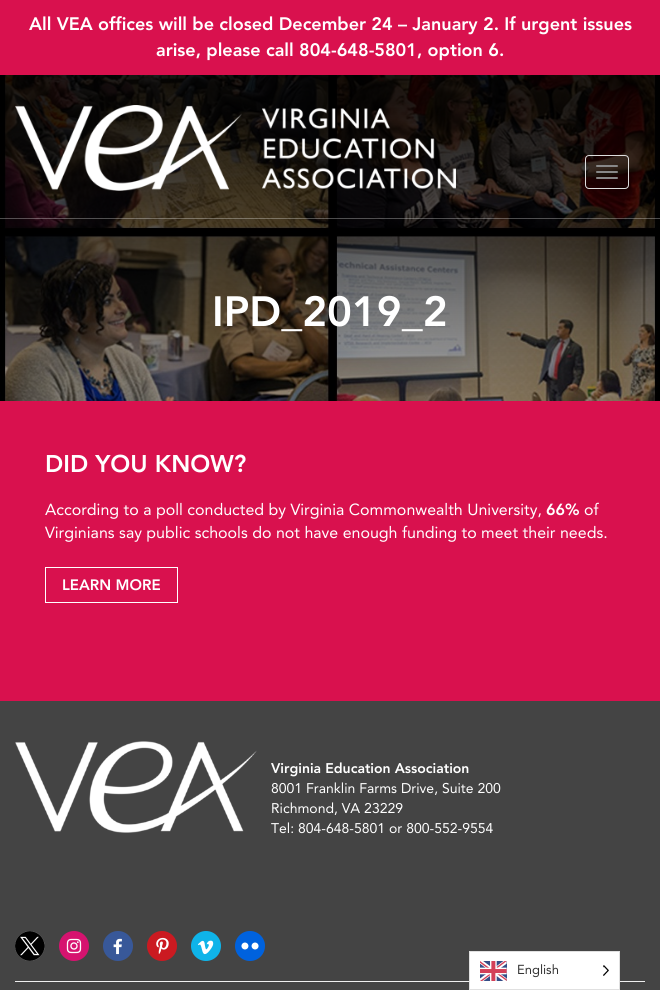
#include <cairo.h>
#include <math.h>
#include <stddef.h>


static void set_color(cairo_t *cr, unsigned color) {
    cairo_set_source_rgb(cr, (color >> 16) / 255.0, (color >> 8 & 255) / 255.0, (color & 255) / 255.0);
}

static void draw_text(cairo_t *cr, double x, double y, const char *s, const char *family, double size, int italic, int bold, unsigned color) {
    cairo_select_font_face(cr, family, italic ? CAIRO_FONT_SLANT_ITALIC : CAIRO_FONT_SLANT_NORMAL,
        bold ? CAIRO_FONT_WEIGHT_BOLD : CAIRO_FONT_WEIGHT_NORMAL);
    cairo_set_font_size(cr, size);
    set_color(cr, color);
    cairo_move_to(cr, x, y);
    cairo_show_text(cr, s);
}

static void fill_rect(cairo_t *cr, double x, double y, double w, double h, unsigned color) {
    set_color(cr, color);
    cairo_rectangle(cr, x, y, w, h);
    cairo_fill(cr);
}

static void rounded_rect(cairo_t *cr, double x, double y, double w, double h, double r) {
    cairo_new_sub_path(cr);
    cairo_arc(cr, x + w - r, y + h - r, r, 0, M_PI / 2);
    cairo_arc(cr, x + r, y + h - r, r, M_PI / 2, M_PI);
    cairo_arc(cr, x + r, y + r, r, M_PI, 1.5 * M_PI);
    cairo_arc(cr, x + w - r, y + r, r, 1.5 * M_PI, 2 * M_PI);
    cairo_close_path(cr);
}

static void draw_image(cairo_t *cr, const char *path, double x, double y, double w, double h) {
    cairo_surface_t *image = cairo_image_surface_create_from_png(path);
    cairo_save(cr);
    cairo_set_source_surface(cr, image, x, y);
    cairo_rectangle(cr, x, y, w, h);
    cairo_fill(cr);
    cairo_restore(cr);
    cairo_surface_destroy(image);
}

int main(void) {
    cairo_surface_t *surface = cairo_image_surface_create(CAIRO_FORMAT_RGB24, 660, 990);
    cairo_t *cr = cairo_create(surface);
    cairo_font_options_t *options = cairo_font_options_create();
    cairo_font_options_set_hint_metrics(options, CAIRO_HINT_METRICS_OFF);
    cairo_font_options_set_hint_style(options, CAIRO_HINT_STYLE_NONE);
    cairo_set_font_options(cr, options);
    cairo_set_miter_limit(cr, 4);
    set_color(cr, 0xD9114E);
    cairo_paint(cr);
    draw_text(cr, 29, 30, "All VEA offices will be closed December 24 – January 2. If urgent issues", "Avenir Black", 18, 0, 0, 0xFFFFFF);
    draw_text(cr, 156, 56, "arise, please call 804-648-5801, option 6.", "Avenir Black", 18, 0, 0, 0xFFFFFF);
    draw_image(cr, "assets/img1.png", 0, 75, 660, 326);
    cairo_set_source_rgba(cr, 1, 1, 1, 0.3);
    cairo_rectangle(cr, 0, 218, 660, 1);
    cairo_fill(cr);
    draw_image(cr, "assets/img2.png", 15, 105, 441, 86);
    rounded_rect(cr, 585.5, 155.5, 43, 33, 3.5);
    set_color(cr, 0xDDDDDD);
    cairo_set_line_width(cr, 1);
    cairo_stroke(cr);
    set_color(cr, 0x888888);
    rounded_rect(cr, 596, 165, 22, 2, 1);
    cairo_fill(cr);
    rounded_rect(cr, 596, 171, 22, 2, 1);
    cairo_fill(cr);
    rounded_rect(cr, 596, 177, 22, 2, 1);
    cairo_fill(cr);
    draw_text(cr, 212, 326, "IPD_2019_2", "Avenir Black", 42, 0, 0, 0xFFFFFF);
    draw_text(cr, 45, 472, "DID YOU KNOW?", "Avenir Black", 24, 0, 0, 0xFFFFFF);
    draw_text(cr, 45, 515, "According to a poll conducted by Virginia Commonwealth University,", "Avenir", 16, 0, 0, 0xFFFFFF);
    draw_text(cr, 546, 515, "66%", "Avenir Black", 16, 0, 0, 0xFFFFFF);
    draw_text(cr, 584, 515, "of", "Avenir", 16, 0, 0, 0xFFFFFF);
    draw_text(cr, 45, 538, "Virginians say public schools do not have enough funding to meet their needs.", "Avenir", 16, 0, 0, 0xFFFFFF);
    cairo_rectangle(cr, 45.5, 567.5, 132, 35);
    cairo_stroke(cr);
    draw_text(cr, 62, 590, "LEARN MORE", "Avenir Black", 15, 0, 0, 0xFFFFFF);
    fill_rect(cr, 0, 701, 660, 289, 0x444444);
    draw_image(cr, "assets/img3.png", 15, 741, 242, 92);
    draw_text(cr, 271, 773, "Virginia Education Association", "Avenir Black", 14, 0, 0, 0xFFFFFF);
    draw_text(cr, 271, 793, "8001 Franklin Farms Drive, Suite 200", "Avenir", 14, 0, 0, 0xFFFFFF);
    draw_text(cr, 271, 813, "Richmond, VA 23229", "Avenir", 14, 0, 0, 0xFFFFFF);
    draw_text(cr, 271, 833, "Tel: 804-648-5801 or 800-552-9554", "Avenir", 14, 0, 0, 0xFFFFFF);
    draw_image(cr, "assets/img4.png", 15, 931, 30, 30);
    draw_image(cr, "assets/img5.png", 59, 931, 30, 30);
    draw_image(cr, "assets/img6.png", 103, 931, 30, 30);
    draw_image(cr, "assets/img7.png", 147, 931, 30, 30);
    draw_image(cr, "assets/img8.png", 191, 931, 30, 30);
    draw_image(cr, "assets/img9.png", 235, 931, 30, 30);
    fill_rect(cr, 15, 981, 630, 1, 0xEEEEEE);
    set_color(cr, 0xFFFFFF);
    cairo_rectangle(cr, 469.5, 951.5, 150, 38);
    cairo_fill_preserve(cr);
    set_color(cr, 0xE0E0E0);
    cairo_stroke(cr);
    draw_image(cr, "assets/img10.png", 480, 961, 27, 20);
    draw_text(cr, 517, 974, "English", "Avenir", 13, 0, 0, 0x333333);
    draw_image(cr, "assets/img11.png", 603, 965, 6, 11);
    cairo_surface_write_to_png(surface, "output.png");
    cairo_font_options_destroy(options);
    cairo_destroy(cr);
    cairo_surface_destroy(surface);
    return 0;
}
